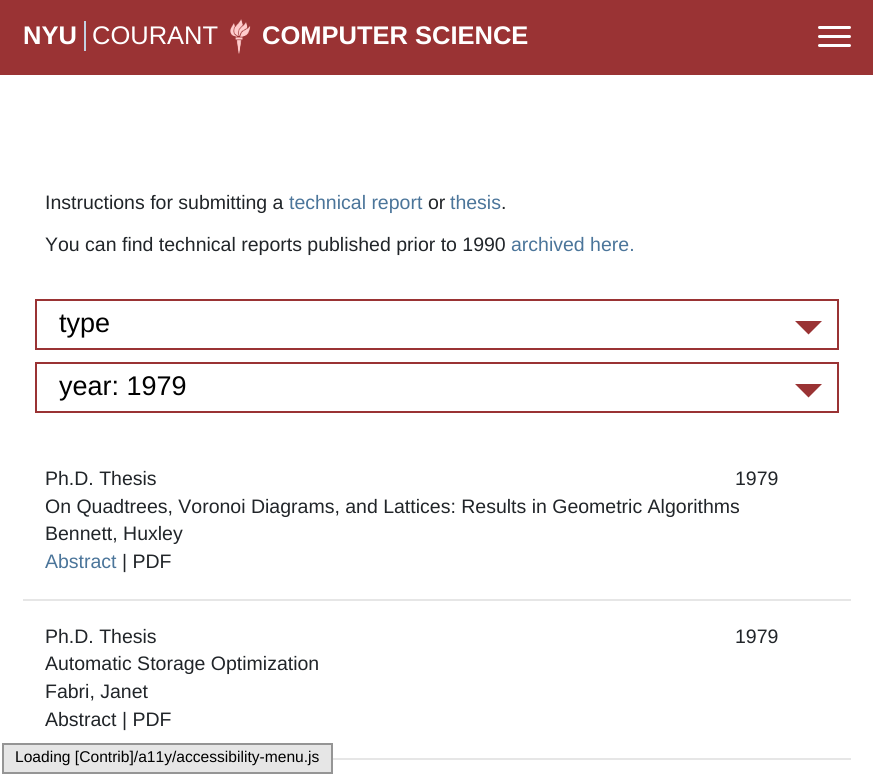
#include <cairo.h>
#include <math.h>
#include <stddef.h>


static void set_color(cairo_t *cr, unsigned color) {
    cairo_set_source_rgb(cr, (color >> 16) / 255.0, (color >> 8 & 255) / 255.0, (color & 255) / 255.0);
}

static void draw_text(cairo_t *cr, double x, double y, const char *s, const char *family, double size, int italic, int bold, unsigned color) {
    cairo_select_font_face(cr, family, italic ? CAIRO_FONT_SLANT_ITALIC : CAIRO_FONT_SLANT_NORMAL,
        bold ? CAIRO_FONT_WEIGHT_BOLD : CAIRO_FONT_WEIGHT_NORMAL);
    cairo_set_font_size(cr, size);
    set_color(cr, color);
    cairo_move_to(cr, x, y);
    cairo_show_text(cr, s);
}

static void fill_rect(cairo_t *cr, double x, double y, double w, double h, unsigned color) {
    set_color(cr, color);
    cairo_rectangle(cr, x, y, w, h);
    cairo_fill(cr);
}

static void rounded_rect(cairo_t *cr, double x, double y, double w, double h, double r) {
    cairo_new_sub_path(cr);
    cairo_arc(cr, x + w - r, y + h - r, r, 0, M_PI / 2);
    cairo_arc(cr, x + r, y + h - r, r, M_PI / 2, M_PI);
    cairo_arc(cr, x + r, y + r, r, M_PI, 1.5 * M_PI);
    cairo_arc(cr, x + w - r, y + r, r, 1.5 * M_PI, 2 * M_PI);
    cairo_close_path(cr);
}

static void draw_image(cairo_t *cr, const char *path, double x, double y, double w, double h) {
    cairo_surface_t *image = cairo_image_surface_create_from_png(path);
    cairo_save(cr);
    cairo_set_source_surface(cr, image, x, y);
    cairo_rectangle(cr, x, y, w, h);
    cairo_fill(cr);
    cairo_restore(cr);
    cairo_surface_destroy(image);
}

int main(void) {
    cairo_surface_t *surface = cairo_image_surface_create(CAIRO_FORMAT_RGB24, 873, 777);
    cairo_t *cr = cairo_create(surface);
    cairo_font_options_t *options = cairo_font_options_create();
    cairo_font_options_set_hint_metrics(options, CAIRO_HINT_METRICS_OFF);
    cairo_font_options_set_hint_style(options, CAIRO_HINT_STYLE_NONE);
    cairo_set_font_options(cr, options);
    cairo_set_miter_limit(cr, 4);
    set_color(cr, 0xFFFFFF);
    cairo_paint(cr);
    fill_rect(cr, 0, 0, 873, 75, 0x9A3334);
    draw_text(cr, 23, 44, "NYU", "Liberation Sans", 25.5, 0, 1, 0xFFFFFF);
    fill_rect(cr, 84, 21, 2, 30, 0xC4D1E1);
    draw_text(cr, 92, 44, "COURANT", "Liberation Sans", 25.5, 0, 0, 0xFFFFFF);
    draw_image(cr, "assets/img1.png", 230, 19, 21, 35);
    draw_text(cr, 262, 44, "COMPUTER SCIENCE", "Liberation Sans", 25.5, 0, 1, 0xFFFFFF);
    rounded_rect(cr, 818, 26, 33, 3, 1.5);
    cairo_fill(cr);
    rounded_rect(cr, 818, 35, 33, 3, 1.5);
    cairo_fill(cr);
    rounded_rect(cr, 818, 44, 33, 3, 1.5);
    cairo_fill(cr);
    draw_text(cr, 45, 209, "Instructions for submitting a", "Liberation Sans", 19.5, 0, 0, 0x212529);
    draw_text(cr, 289, 209, "technical report", "Liberation Sans", 19.5, 0, 0, 0x4B759A);
    draw_text(cr, 428, 209, "or", "Liberation Sans", 19.5, 0, 0, 0x212529);
    draw_text(cr, 450, 209, "thesis", "Liberation Sans", 19.5, 0, 0, 0x4B759A);
    draw_text(cr, 501, 209, ".", "Liberation Sans", 19.5, 0, 0, 0x212529);
    draw_text(cr, 45, 251, "You can find technical reports published prior to 1990", "Liberation Sans", 19.5, 0, 0, 0x212529);
    draw_text(cr, 511, 251, "archived here.", "Liberation Sans", 19.5, 0, 0, 0x4B759A);
    cairo_rectangle(cr, 36, 300, 802, 49);
    set_color(cr, 0x9A3334);
    cairo_stroke(cr);
    draw_text(cr, 59, 332, "type", "Liberation Sans", 27, 0, 0, 0x000000);
    set_color(cr, 0x9A3334);
    cairo_new_path(cr);
    cairo_move_to(cr, 795, 321);
    cairo_line_to(cr, 822, 321);
    cairo_line_to(cr, 808.5, 334.5);
    cairo_close_path(cr);
    cairo_fill(cr);
    cairo_rectangle(cr, 36, 363, 802, 49);
    cairo_stroke(cr);
    draw_text(cr, 59, 395, "year: 1979", "Liberation Sans", 27, 0, 0, 0x000000);
    set_color(cr, 0x9A3334);
    cairo_new_path(cr);
    cairo_move_to(cr, 795, 384);
    cairo_line_to(cr, 822, 384);
    cairo_line_to(cr, 808.5, 397.5);
    cairo_close_path(cr);
    cairo_fill(cr);
    fill_rect(cr, 23, 599, 828, 2, 0xE6E6E6);
    draw_text(cr, 45, 485, "Ph.D. Thesis", "Liberation Sans", 19.5, 0, 0, 0x212529);
    draw_text(cr, 735, 485, "1979", "Liberation Sans", 19.5, 0, 0, 0x212529);
    draw_text(cr, 45, 513, "On Quadtrees, Voronoi Diagrams, and Lattices: Results in Geometric Algorithms", "Liberation Sans", 19.5, 0, 0, 0x212529);
    draw_text(cr, 45, 540, "Bennett, Huxley", "Liberation Sans", 19.5, 0, 0, 0x212529);
    draw_text(cr, 45, 568, "Abstract", "Liberation Sans", 19.5, 0, 0, 0x4B759A);
    draw_text(cr, 122, 568, "| PDF", "Liberation Sans", 19.5, 0, 0, 0x212529);
    fill_rect(cr, 333, 758, 518, 2, 0xE6E6E6);
    draw_text(cr, 45, 643, "Ph.D. Thesis", "Liberation Sans", 19.5, 0, 0, 0x212529);
    draw_text(cr, 735, 643, "1979", "Liberation Sans", 19.5, 0, 0, 0x212529);
    draw_text(cr, 45, 670, "Automatic Storage Optimization", "Liberation Sans", 19.5, 0, 0, 0x212529);
    draw_text(cr, 45, 698, "Fabri, Janet", "Liberation Sans", 19.5, 0, 0, 0x212529);
    draw_text(cr, 45, 726, "Abstract | PDF", "Liberation Sans", 19.5, 0, 0, 0x212529);
    set_color(cr, 0xE6E6E6);
    cairo_rectangle(cr, 3, 744, 329, 29);
    cairo_fill_preserve(cr);
    set_color(cr, 0x959595);
    cairo_stroke(cr);
    draw_text(cr, 15, 762, "Loading [Contrib]/a11y/accessibility-menu.js", "Liberation Sans", 15.6, 0, 0, 0x000000);
    cairo_surface_write_to_png(surface, "output.png");
    cairo_font_options_destroy(options);
    cairo_destroy(cr);
    cairo_surface_destroy(surface);
    return 0;
}
